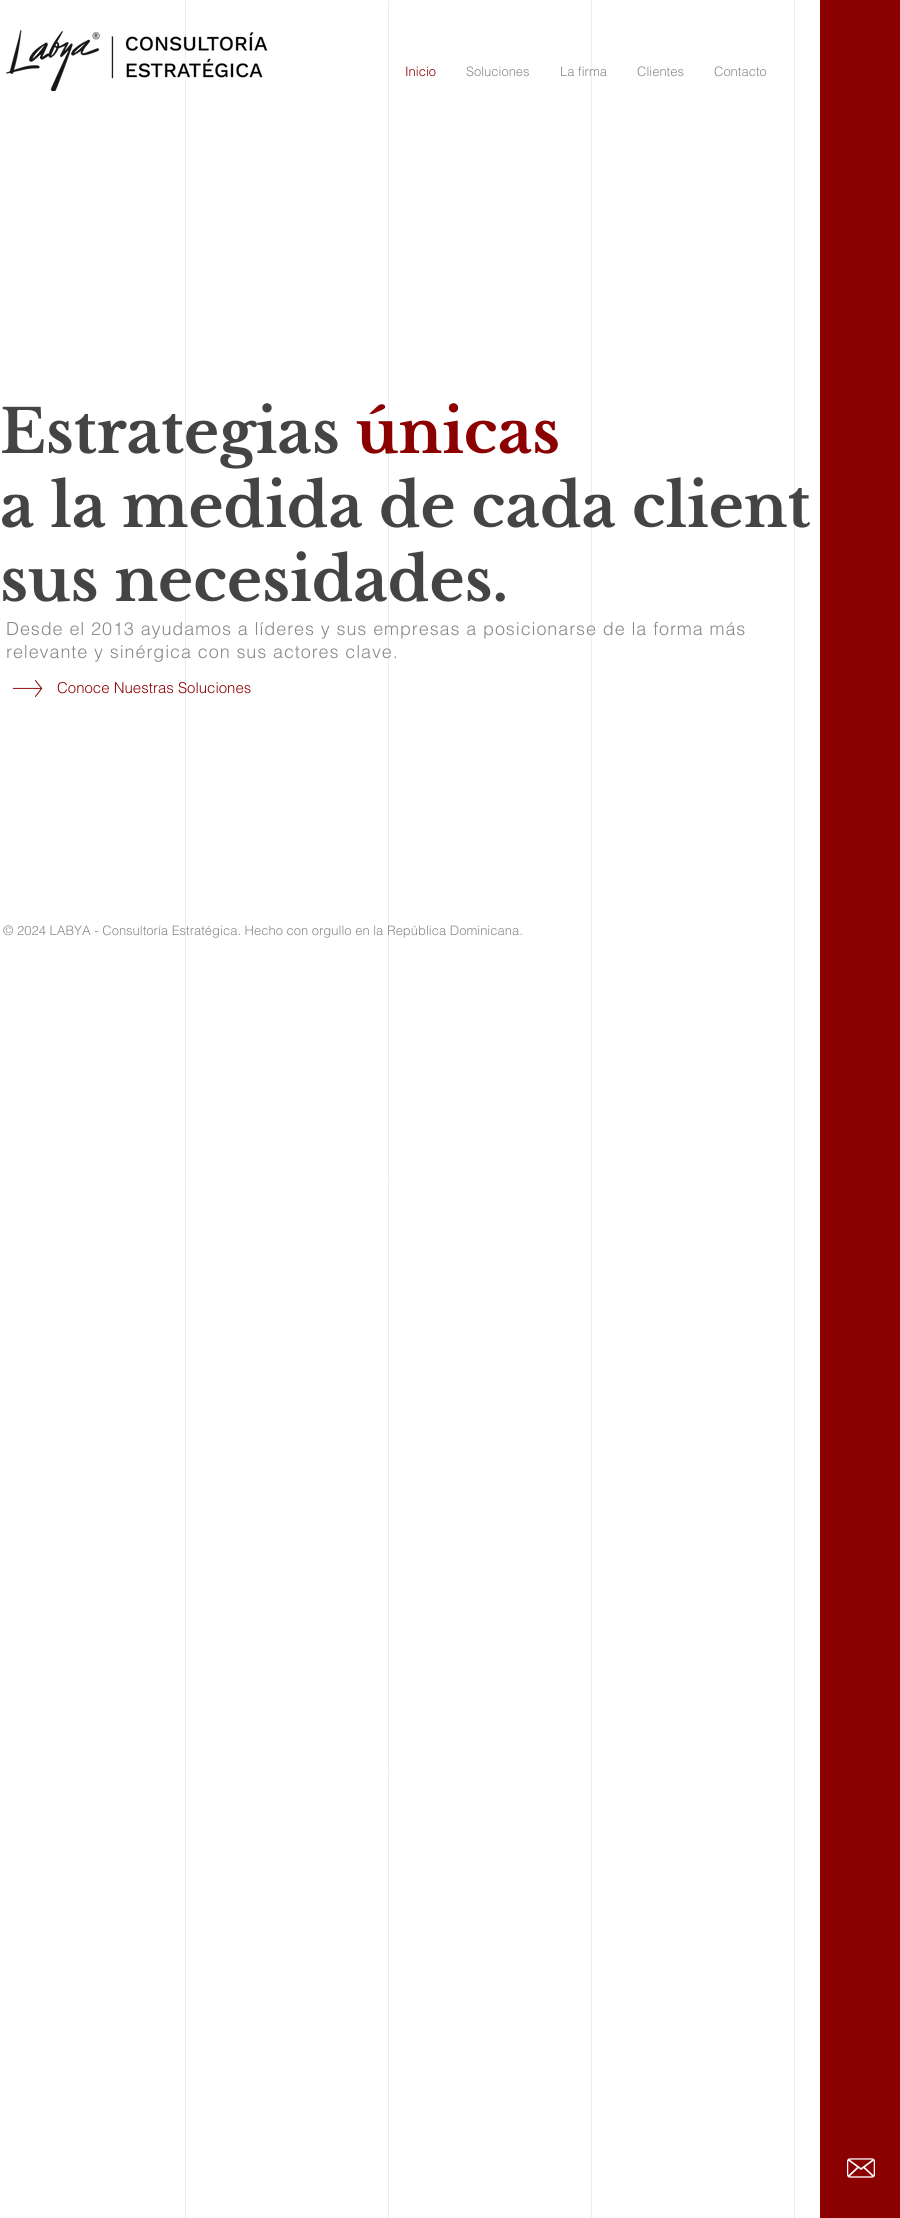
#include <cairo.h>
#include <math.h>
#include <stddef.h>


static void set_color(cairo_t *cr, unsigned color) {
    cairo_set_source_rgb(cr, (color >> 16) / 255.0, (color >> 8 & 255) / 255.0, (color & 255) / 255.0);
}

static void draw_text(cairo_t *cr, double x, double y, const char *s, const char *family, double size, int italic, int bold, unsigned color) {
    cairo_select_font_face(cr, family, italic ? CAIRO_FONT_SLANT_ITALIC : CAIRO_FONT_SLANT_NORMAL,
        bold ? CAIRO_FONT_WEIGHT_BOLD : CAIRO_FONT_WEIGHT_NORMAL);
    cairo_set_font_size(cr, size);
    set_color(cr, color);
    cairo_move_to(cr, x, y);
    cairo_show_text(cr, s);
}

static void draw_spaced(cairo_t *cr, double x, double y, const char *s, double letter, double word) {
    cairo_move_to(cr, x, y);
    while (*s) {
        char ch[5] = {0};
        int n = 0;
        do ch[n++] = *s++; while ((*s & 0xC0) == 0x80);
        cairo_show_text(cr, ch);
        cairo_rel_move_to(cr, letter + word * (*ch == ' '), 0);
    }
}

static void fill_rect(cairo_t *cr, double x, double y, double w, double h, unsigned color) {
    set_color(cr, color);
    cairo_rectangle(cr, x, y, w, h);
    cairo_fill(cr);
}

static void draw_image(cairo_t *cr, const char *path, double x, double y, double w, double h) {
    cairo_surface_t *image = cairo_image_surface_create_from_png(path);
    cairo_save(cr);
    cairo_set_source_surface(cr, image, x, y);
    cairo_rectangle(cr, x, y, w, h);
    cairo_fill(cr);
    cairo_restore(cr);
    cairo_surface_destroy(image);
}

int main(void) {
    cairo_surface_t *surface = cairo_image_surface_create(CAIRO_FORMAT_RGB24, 900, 2218);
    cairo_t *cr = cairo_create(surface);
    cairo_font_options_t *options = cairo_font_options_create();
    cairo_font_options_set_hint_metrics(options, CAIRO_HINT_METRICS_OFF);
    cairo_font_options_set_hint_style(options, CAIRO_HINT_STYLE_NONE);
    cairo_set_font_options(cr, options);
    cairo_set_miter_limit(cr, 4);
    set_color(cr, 0xFFFFFF);
    cairo_paint(cr);
    draw_image(cr, "assets/img1.png", 185, 1, 610, 2217);
    draw_image(cr, "assets/img2.png", 6, 30, 262, 61);
    draw_text(cr, 405, 76, "Inicio", "helvetica Light", 13, 0, 0, 0x8B0000);
    draw_text(cr, 466, 76, "Soluciones", "helvetica Light", 13, 0, 0, 0x888888);
    draw_text(cr, 560, 76, "La firma", "helvetica Light", 13, 0, 0, 0x888888);
    draw_text(cr, 637, 76, "Clientes", "helvetica Light", 13, 0, 0, 0x888888);
    draw_text(cr, 714, 76, "Contacto", "helvetica Light", 13, 0, 0, 0x888888);
    fill_rect(cr, 820, 0, 80, 2218, 0x8B0000);
    draw_text(cr, 0, 453, "Estrategias", "Libre Baskerville", 60, 0, 1, 0x444444);
    draw_text(cr, 356, 453, "únicas", "Libre Baskerville", 60, 0, 1, 0x8B0000);
    draw_text(cr, 0, 527, "a la medida de cada client", "Libre Baskerville", 60, 0, 1, 0x444444);
    draw_text(cr, 0, 601, "sus necesidades.", "Libre Baskerville", 60, 0, 1, 0x444444);
    cairo_select_font_face(cr, "helvetica Light", CAIRO_FONT_SLANT_NORMAL, CAIRO_FONT_WEIGHT_NORMAL);
    cairo_set_font_size(cr, 18);
    set_color(cr, 0x888888);
    draw_spaced(cr, 6, 635, "Desde el 2013 ayudamos a líderes y sus empresas a posicionarse de la forma más", 0.9, 0);
    draw_spaced(cr, 6, 658, "relevante y sinérgica con sus actores clave.", 0.9, 0);
    draw_image(cr, "assets/img3.png", 12, 680, 31, 17);
    draw_text(cr, 57, 693, "Conoce Nuestras Soluciones", "helvetica Light", 15, 0, 0, 0x8B0000);
    draw_text(cr, 3, 935, "© 2024 LABYA - Consultoría Estratégica. Hecho con orgullo en la República Dominicana.", "helvetica Light", 13, 0, 0, 0x888888);
    draw_image(cr, "assets/img4.png", 847, 2158, 28, 20);
    cairo_surface_write_to_png(surface, "output.png");
    cairo_font_options_destroy(options);
    cairo_destroy(cr);
    cairo_surface_destroy(surface);
    return 0;
}
